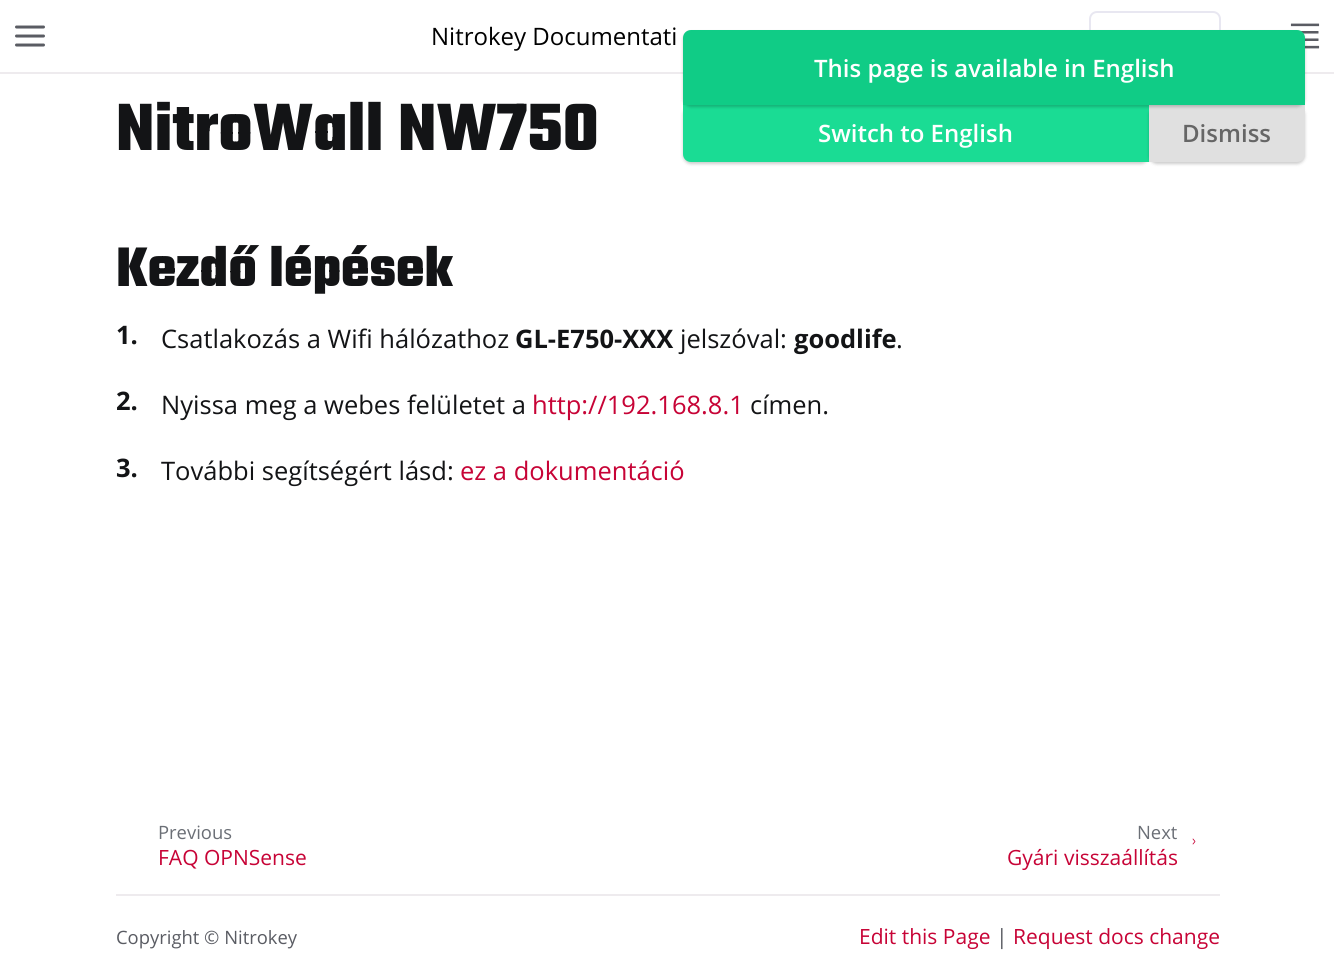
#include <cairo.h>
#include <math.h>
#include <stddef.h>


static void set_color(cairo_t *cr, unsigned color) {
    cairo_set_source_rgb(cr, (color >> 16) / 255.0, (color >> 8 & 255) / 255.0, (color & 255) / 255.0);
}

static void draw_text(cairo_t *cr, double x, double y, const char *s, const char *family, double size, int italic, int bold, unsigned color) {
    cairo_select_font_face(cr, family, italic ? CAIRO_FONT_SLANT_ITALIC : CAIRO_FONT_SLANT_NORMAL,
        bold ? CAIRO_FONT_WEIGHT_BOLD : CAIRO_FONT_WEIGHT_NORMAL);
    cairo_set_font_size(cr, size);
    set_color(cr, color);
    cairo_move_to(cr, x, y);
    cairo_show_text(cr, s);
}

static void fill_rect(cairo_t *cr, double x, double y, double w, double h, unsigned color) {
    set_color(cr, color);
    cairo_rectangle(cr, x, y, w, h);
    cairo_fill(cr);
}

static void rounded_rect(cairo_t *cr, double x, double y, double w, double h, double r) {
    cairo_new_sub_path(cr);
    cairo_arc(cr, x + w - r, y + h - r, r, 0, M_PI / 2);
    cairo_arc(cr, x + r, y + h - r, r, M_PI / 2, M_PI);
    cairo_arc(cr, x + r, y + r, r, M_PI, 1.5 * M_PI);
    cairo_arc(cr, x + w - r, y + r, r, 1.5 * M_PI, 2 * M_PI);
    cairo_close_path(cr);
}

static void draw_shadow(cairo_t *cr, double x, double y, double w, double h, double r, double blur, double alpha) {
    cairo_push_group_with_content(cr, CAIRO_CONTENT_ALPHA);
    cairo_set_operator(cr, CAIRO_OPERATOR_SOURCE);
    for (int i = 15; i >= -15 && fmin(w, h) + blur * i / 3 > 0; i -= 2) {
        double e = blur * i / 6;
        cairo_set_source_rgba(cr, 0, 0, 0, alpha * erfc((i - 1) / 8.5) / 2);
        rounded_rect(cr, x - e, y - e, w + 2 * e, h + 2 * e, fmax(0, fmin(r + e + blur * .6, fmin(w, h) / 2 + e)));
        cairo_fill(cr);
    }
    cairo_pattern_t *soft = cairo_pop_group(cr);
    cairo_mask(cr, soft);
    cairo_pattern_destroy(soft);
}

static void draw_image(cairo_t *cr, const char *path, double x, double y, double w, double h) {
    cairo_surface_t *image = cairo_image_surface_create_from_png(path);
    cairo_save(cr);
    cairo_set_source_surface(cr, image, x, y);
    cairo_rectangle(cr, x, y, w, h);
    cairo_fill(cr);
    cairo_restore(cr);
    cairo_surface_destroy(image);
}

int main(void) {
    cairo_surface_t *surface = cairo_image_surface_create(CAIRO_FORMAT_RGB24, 1334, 980);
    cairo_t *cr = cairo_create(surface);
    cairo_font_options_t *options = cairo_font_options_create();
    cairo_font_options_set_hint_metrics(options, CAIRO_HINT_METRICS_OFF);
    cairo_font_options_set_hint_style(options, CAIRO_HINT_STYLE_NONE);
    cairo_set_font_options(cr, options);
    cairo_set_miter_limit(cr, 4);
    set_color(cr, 0xFFFFFF);
    cairo_paint(cr);
    fill_rect(cr, 0, 72, 1334, 2, 0xEEEBEE);
    cairo_new_path(cr);
    cairo_move_to(cr, 16.5, 36);
    cairo_line_to(cr, 43.5, 36);
    cairo_move_to(cr, 16.5, 27);
    cairo_line_to(cr, 43.5, 27);
    cairo_move_to(cr, 16.5, 45);
    cairo_line_to(cr, 43.5, 45);
    set_color(cr, 0x5A5C63);
    cairo_set_line_width(cr, 3);
    cairo_set_line_cap(cr, CAIRO_LINE_CAP_ROUND);
    cairo_set_line_join(cr, CAIRO_LINE_JOIN_ROUND);
    cairo_stroke(cr);
    draw_text(cr, 431, 45, "Nitrokey Documentati", "Open Sans", 24, 0, 0, 0x000000);
    rounded_rect(cr, 1090, 12, 130, 49, 7);
    set_color(cr, 0xE8E7F1);
    cairo_set_line_width(cr, 2);
    cairo_set_line_cap(cr, CAIRO_LINE_CAP_BUTT);
    cairo_set_line_join(cr, CAIRO_LINE_JOIN_MITER);
    cairo_stroke(cr);
    draw_image(cr, "assets/img1.png", 1290, 23, 30, 26);
    draw_text(cr, 116, 150, "NitroWall NW750", "Teko Light", 72, 0, 0, 0x131416);
    draw_text(cr, 116, 286, "Kezdő lépések", "Teko Light", 60, 0, 0, 0x131416);
    draw_text(cr, 116, 344, "1.", "Open Sans", 25.5, 0, 1, 0x131416);
    draw_text(cr, 161, 348, "Csatlakozás a Wifi hálózathoz", "Open Sans", 25.5, 0, 0, 0x131416);
    draw_text(cr, 515, 348, "GL-E750-XXX", "Open Sans", 25.5, 0, 1, 0x131416);
    draw_text(cr, 680, 348, "jelszóval:", "Open Sans", 25.5, 0, 0, 0x131416);
    draw_text(cr, 794, 348, "goodlife", "Open Sans", 25.5, 0, 1, 0x131416);
    draw_text(cr, 896, 348, ".", "Open Sans", 25.5, 0, 0, 0x131416);
    draw_text(cr, 116, 410, "2.", "Open Sans", 25.5, 0, 1, 0x131416);
    draw_text(cr, 161, 414, "Nyissa meg a webes felületet a", "Open Sans", 25.5, 0, 0, 0x131416);
    draw_text(cr, 532, 414, "http://192.168.8.1", "Open Sans", 25.5, 0, 0, 0xC70336);
    draw_text(cr, 750, 414, "címen.", "Open Sans", 25.5, 0, 0, 0x131416);
    draw_text(cr, 116, 477, "3.", "Open Sans", 25.5, 0, 1, 0x131416);
    draw_text(cr, 161, 480, "További segítségért lásd:", "Open Sans", 25.5, 0, 0, 0x131416);
    draw_text(cr, 460, 480, "ez a dokumentáció", "Open Sans", 25.5, 0, 0, 0xC70336);
    set_color(cr, 0x000000);
    draw_shadow(cr, 683, 107, 466, 57, 8, 1.5, 0.2);
    set_color(cr, 0x1ADC94);
    cairo_new_path(cr);
    cairo_move_to(cr, 683, 105);
    cairo_line_to(cr, 1149, 105);
    cairo_line_to(cr, 1149, 162);
    cairo_line_to(cr, 691, 162);
    cairo_curve_to(cr, 686.5, 162, 683, 158.5, 683, 154);
    cairo_close_path(cr);
    cairo_fill(cr);
    set_color(cr, 0x000000);
    draw_shadow(cr, 1149, 107, 156, 57, 8, 1.5, 0.2);
    set_color(cr, 0xE0E0E0);
    cairo_new_path(cr);
    cairo_move_to(cr, 1149, 105);
    cairo_line_to(cr, 1305, 105);
    cairo_line_to(cr, 1305, 154);
    cairo_curve_to(cr, 1305, 158.5, 1301.5, 162, 1297, 162);
    cairo_line_to(cr, 1149, 162);
    cairo_close_path(cr);
    cairo_fill(cr);
    set_color(cr, 0x000000);
    draw_shadow(cr, 683, 32, 622, 75, 8, 1.5, 0.2);
    set_color(cr, 0x10CC86);
    cairo_new_path(cr);
    cairo_move_to(cr, 691, 30);
    cairo_line_to(cr, 1297, 30);
    cairo_curve_to(cr, 1301.5, 30, 1305, 33.5, 1305, 38);
    cairo_line_to(cr, 1305, 105);
    cairo_line_to(cr, 683, 105);
    cairo_line_to(cr, 683, 38);
    cairo_curve_to(cr, 683, 33.5, 686.5, 30, 691, 30);
    cairo_close_path(cr);
    cairo_fill(cr);
    draw_text(cr, 814, 77, "This page is available in English", "Open Sans SemiBold", 24, 0, 0, 0xFFFFFF);
    draw_text(cr, 818, 142, "Switch to English", "Open Sans SemiBold", 24, 0, 0, 0xFFFFFF);
    draw_text(cr, 1182, 142, "Dismiss", "Open Sans SemiBold", 24, 0, 0, 0x666666);
    draw_text(cr, 158, 839, "Previous", "Open Sans", 18.4, 0, 0, 0x6B6F76);
    draw_text(cr, 158, 865, "FAQ OPNSense", "Open Sans", 21, 0, 0, 0xC70336);
    draw_text(cr, 1137, 839, "Next", "Open Sans", 18.4, 0, 0, 0x6B6F76);
    draw_text(cr, 1007, 865, "Gyári visszaállítás", "Open Sans", 21, 0, 0, 0xC70336);
    cairo_new_path(cr);
    cairo_move_to(cr, 1193, 844);
    cairo_line_to(cr, 1195, 841.5);
    cairo_line_to(cr, 1193, 839);
    cairo_set_line_width(cr, 0.8);
    cairo_set_line_cap(cr, CAIRO_LINE_CAP_ROUND);
    cairo_set_line_join(cr, CAIRO_LINE_JOIN_ROUND);
    cairo_stroke(cr);
    fill_rect(cr, 116, 894, 1104, 2, 0xEEEBEE);
    draw_text(cr, 116, 944, "Copyright © Nitrokey", "Open Sans", 18.4, 0, 0, 0x5A5C63);
    draw_text(cr, 859, 944, "Edit this Page", "Open Sans", 21, 0, 0, 0xC70336);
    draw_text(cr, 996, 944, "|", "Open Sans", 21, 0, 0, 0x5A5C63);
    draw_text(cr, 1013, 944, "Request docs change", "Open Sans", 21, 0, 0, 0xC70336);
    cairo_surface_write_to_png(surface, "output.png");
    cairo_font_options_destroy(options);
    cairo_destroy(cr);
    cairo_surface_destroy(surface);
    return 0;
}
